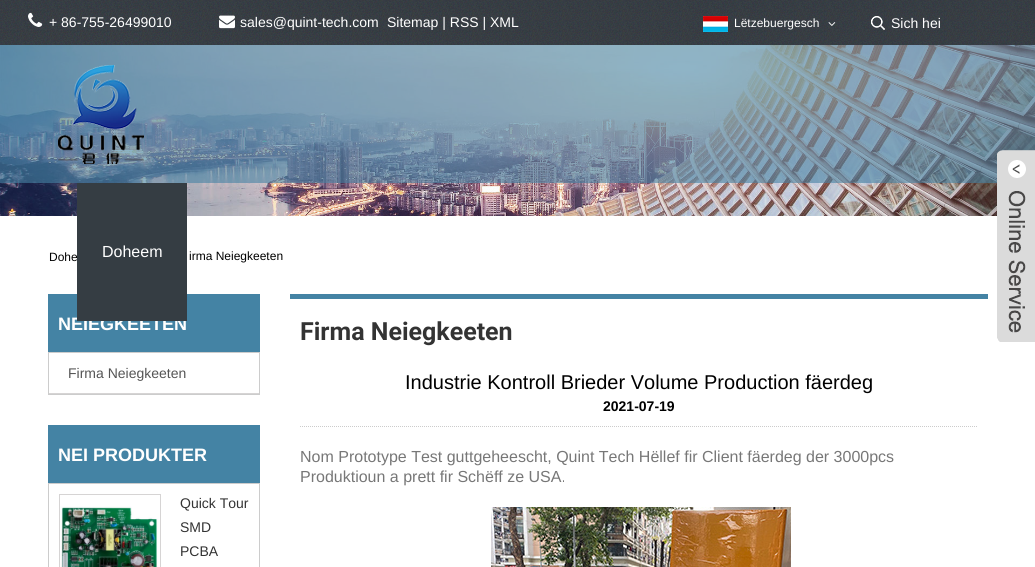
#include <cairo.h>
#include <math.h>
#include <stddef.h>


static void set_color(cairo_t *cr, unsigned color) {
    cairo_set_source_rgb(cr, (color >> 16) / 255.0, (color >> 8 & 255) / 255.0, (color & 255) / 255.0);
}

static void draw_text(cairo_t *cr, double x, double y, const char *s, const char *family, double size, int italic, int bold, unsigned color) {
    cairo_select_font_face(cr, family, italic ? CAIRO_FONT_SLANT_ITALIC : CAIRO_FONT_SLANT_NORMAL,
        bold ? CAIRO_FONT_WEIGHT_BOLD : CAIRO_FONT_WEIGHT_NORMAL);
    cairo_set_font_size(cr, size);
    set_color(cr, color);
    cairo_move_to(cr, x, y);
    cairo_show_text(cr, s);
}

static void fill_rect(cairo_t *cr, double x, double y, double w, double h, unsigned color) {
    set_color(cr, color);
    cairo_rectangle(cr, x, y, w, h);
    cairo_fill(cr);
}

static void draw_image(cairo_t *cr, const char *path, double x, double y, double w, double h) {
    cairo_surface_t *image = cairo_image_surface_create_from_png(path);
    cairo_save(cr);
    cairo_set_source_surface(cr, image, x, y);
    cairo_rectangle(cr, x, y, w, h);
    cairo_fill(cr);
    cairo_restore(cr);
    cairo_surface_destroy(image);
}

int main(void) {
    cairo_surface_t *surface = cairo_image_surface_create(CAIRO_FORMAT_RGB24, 1035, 567);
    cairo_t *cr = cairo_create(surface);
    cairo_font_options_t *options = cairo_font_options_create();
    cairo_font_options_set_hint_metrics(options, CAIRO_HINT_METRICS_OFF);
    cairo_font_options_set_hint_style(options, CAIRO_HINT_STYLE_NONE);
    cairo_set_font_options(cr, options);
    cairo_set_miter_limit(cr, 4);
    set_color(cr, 0xFFFFFF);
    cairo_paint(cr);
    draw_image(cr, "assets/img1.png", 0, 0, 1035, 45);
    draw_image(cr, "assets/img2.png", 28, 12, 15, 15);
    draw_text(cr, 49, 27, "+ 86-755-26499010", "Liberation Sans", 14, 0, 0, 0xFFFFFF);
    draw_image(cr, "assets/img3.png", 219, 15, 16, 14);
    draw_text(cr, 240, 27, "sales@quint-tech.com", "Liberation Sans", 14, 0, 0, 0xFFFFFF);
    draw_text(cr, 387, 27, "Sitemap | RSS | XML", "Liberation Sans", 14, 0, 0, 0xFFFFFF);
    draw_image(cr, "assets/img4.png", 703, 16, 25, 16);
    draw_text(cr, 734, 27, "Lëtzebuergesch", "Liberation Sans", 12, 0, 0, 0xFFFFFF);
    draw_image(cr, "assets/img5.png", 828, 22, 8, 4);
    draw_image(cr, "assets/img6.png", 871, 16, 14, 14);
    draw_text(cr, 891, 28, "Sich hei", "Liberation Sans", 14, 0, 0, 0xFFFFFF);
    draw_image(cr, "assets/img8.png", 0, 45, 1035, 171);
    cairo_set_source_rgba(cr, 0.267, 0.514, 0.643, 0.6);
    cairo_rectangle(cr, 0, 45, 1035, 138);
    cairo_fill(cr);
    draw_image(cr, "assets/img7.png", 58, 65, 86, 99);
    fill_rect(cr, 48, 294, 212, 58, 0x4483A4);
    draw_text(cr, 58, 330, "NEIEGKEETEN", "Liberation Sans", 18, 0, 1, 0xFFFFFF);
    fill_rect(cr, 77, 183, 110, 138, 0x353D43);
    draw_text(cr, 102, 257, "Doheem", "Liberation Sans", 16, 0, 0, 0xFFFFFF);
    draw_text(cr, 49, 261, "Dohe", "Liberation Sans", 12, 0, 0, 0x000000);
    draw_text(cr, 189, 260, "irma Neiegkeeten", "Liberation Sans", 12, 0, 0, 0x000000);
    cairo_rectangle(cr, 48.5, 352.5, 211, 42);
    set_color(cr, 0xCCCCCC);
    cairo_set_line_width(cr, 1);
    cairo_stroke(cr);
    fill_rect(cr, 49, 393, 210, 1, 0xD6D4D4);
    draw_text(cr, 68, 378, "Firma Neiegkeeten", "Liberation Sans", 14, 0, 0, 0x555555);
    fill_rect(cr, 48, 425, 212, 58, 0x4483A4);
    draw_text(cr, 58, 461, "NEI PRODUKTER", "Liberation Sans", 18, 0, 1, 0xFFFFFF);
    cairo_rectangle(cr, 48.5, 483.5, 211, 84);
    set_color(cr, 0xCCCCCC);
    cairo_stroke(cr);
    cairo_rectangle(cr, 59.5, 494.5, 101, 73);
    set_color(cr, 0xD6D4D4);
    cairo_stroke(cr);
    draw_image(cr, "assets/img9.png", 60, 506, 98, 61);
    draw_text(cr, 180, 508, "Quick Tour", "Liberation Sans", 14, 0, 0, 0x333333);
    draw_text(cr, 180, 532, "SMD", "Liberation Sans", 14, 0, 0, 0x333333);
    draw_text(cr, 180, 556, "PCBA", "Liberation Sans", 14, 0, 0, 0x333333);
    fill_rect(cr, 290, 294, 698, 5, 0x4483A4);
    draw_text(cr, 300, 340, "Firma Neiegkeeten", "Roboto", 25, 0, 1, 0x333333);
    cairo_new_path(cr);
    cairo_move_to(cr, 300, 426.5);
    cairo_line_to(cr, 978, 426.5);
    set_color(cr, 0xCCCCCC);
    cairo_set_dash(cr, (double[]){1, 1}, 2, 0);
    cairo_stroke(cr);
    draw_text(cr, 405, 389, "Industrie Kontroll Brieder Volume Production fäerdeg", "Liberation Sans", 20, 0, 0, 0x000000);
    draw_text(cr, 603, 411, "2021-07-19", "Liberation Sans", 14, 0, 1, 0x000000);
    draw_text(cr, 300, 462, "Nom Prototype Test guttgeheescht, Quint Tech Hëllef fir Client fäerdeg der 3000pcs", "Liberation Sans", 16, 0, 0, 0x777777);
    draw_text(cr, 300, 482, "Produktioun a prett fir Schëff ze USA.", "Liberation Sans", 16, 0, 0, 0x777777);
    draw_image(cr, "assets/img10.png", 491, 507, 300, 60);
    draw_image(cr, "assets/img11.png", 997, 150, 38, 192);
    cairo_surface_write_to_png(surface, "output.png");
    cairo_font_options_destroy(options);
    cairo_destroy(cr);
    cairo_surface_destroy(surface);
    return 0;
}
